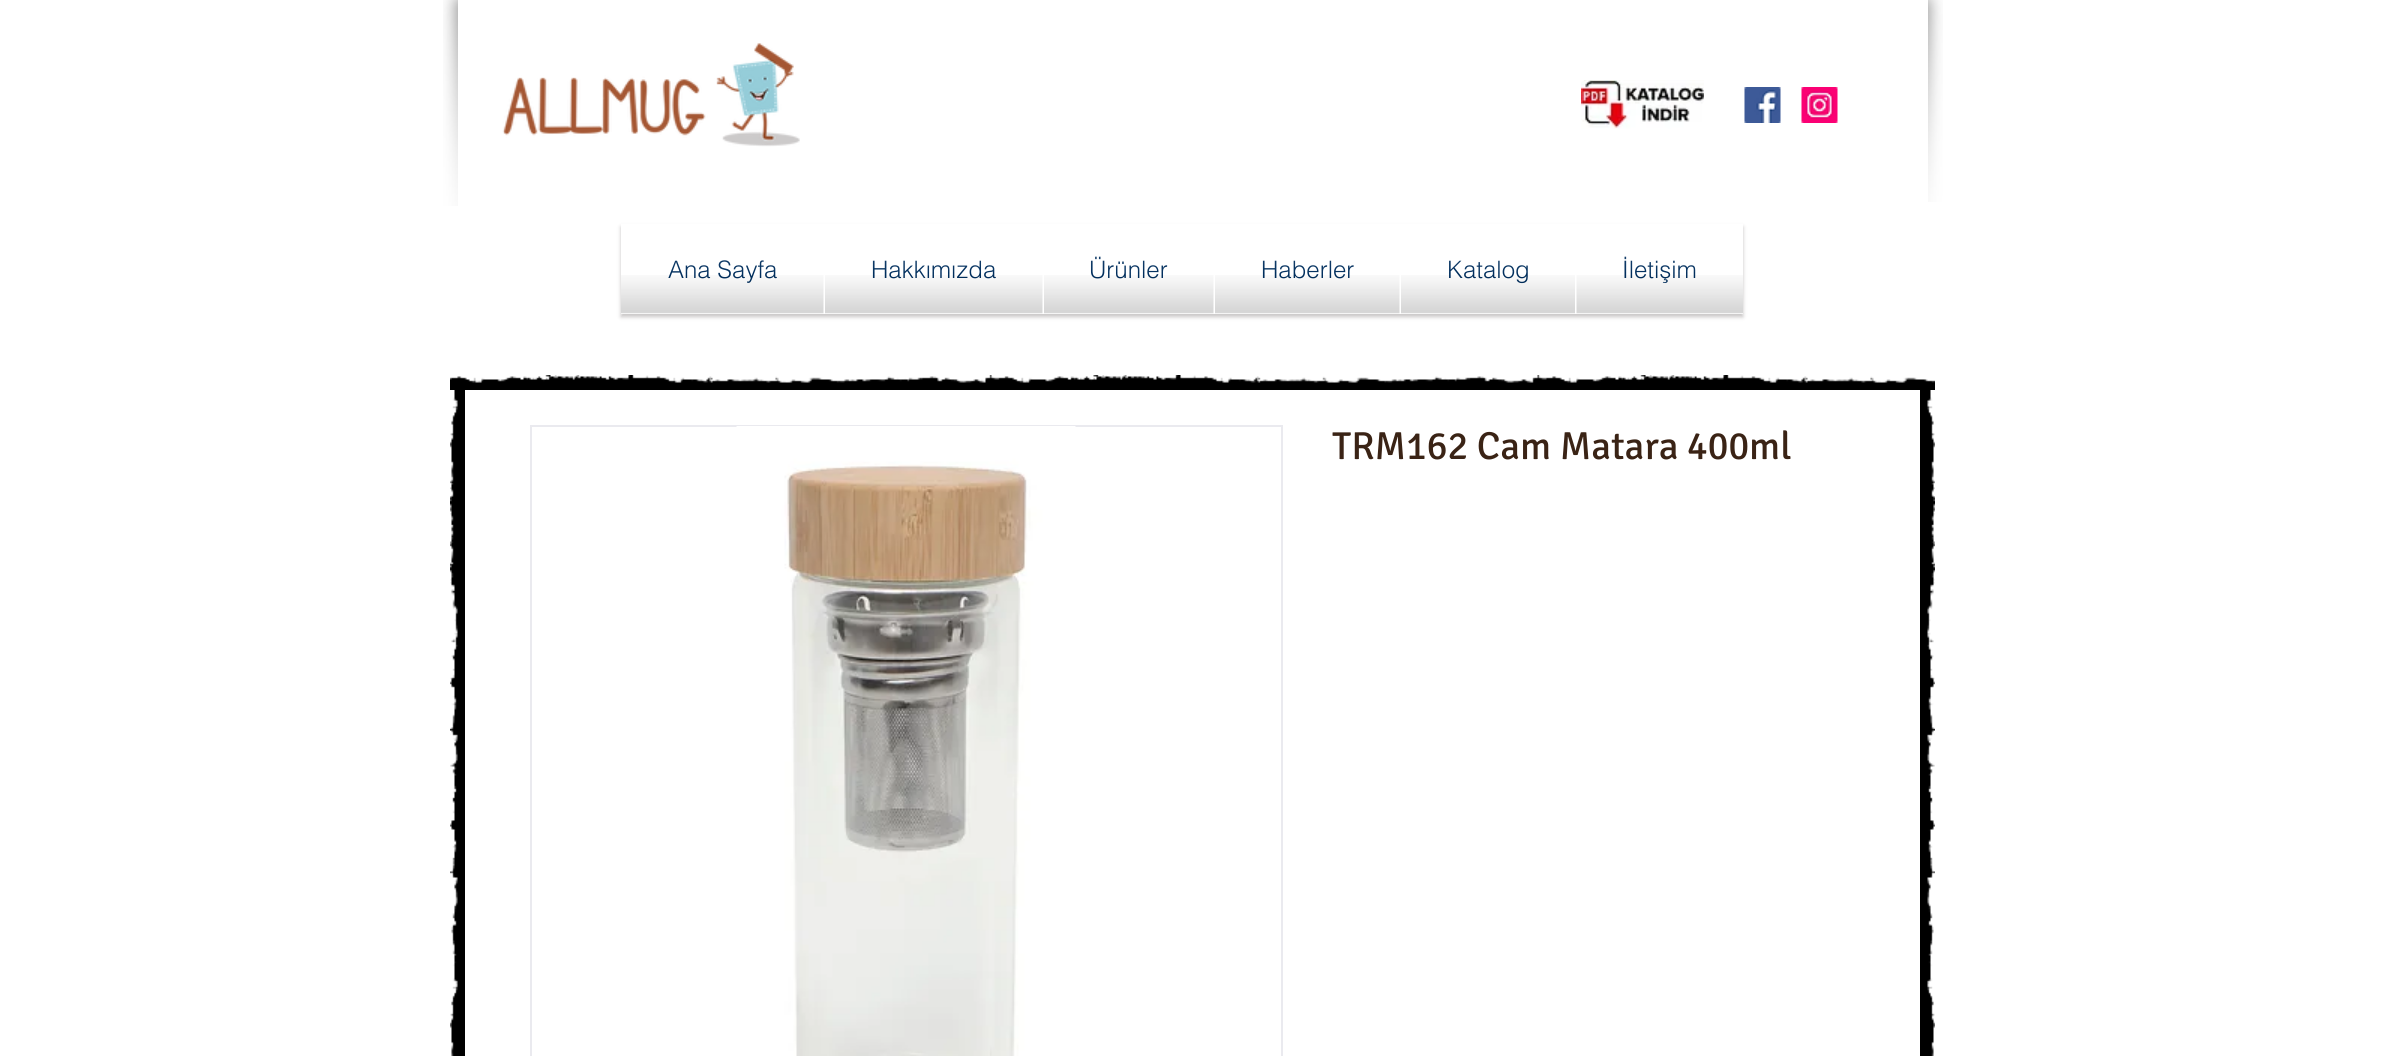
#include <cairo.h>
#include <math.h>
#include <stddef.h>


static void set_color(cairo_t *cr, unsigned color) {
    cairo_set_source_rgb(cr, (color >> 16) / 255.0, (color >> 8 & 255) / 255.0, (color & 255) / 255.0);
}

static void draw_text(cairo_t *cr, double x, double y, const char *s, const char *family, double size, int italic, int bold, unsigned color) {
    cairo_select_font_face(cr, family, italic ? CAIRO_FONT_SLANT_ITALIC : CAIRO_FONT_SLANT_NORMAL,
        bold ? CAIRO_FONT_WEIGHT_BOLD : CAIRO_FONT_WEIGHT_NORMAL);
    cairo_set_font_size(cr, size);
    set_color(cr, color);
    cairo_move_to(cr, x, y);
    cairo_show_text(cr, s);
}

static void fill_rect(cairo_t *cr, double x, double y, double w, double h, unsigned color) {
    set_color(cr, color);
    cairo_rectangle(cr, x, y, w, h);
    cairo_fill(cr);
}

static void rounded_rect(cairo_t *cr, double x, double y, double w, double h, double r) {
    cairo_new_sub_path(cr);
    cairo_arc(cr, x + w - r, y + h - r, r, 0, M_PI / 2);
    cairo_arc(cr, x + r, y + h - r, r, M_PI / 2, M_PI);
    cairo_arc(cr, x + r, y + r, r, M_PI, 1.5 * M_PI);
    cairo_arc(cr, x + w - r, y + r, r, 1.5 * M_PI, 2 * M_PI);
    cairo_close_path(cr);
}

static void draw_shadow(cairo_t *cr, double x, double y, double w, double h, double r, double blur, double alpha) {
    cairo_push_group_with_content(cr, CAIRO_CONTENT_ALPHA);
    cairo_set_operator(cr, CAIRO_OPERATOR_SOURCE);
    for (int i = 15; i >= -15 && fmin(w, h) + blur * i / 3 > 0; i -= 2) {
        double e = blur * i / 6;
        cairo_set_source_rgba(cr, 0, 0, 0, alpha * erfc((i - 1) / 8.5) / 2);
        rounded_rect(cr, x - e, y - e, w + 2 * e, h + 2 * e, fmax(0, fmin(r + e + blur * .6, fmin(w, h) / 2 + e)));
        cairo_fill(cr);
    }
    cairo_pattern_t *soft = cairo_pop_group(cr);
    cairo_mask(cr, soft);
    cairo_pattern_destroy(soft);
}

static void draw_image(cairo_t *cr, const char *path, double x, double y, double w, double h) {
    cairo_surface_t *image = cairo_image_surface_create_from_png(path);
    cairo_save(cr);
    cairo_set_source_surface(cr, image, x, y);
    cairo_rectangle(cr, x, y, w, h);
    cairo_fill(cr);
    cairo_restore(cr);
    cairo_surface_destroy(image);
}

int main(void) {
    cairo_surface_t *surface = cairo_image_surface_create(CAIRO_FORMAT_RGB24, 2385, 1056);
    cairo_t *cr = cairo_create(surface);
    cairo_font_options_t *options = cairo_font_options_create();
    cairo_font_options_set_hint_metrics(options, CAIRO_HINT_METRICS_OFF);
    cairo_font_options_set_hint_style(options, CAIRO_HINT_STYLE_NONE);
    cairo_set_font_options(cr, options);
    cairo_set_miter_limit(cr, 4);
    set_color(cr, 0xFFFFFF);
    cairo_paint(cr);
    draw_image(cr, "assets/img1.png", 443, 0, 15, 206);
    draw_image(cr, "assets/img2.png", 1928, 0, 15, 202);
    draw_image(cr, "assets/img3.png", 502, 43, 298, 104);
    draw_image(cr, "assets/img4.png", 1581, 80, 123, 49);
    draw_image(cr, "assets/img5.png", 1744, 87, 37, 36);
    draw_image(cr, "assets/img6.png", 1801, 87, 37, 36);
    set_color(cr, 0xA29E9E);
    draw_shadow(cr, 621, 227, 1122, 90, 0, 2, 0.6);
    fill_rect(cr, 621, 224, 1122, 90, 0xFFFFFF);
    draw_text(cr, 668, 278, "Ana Sayfa", "helvetica Light", 24, 0, 0, 0x002E5D);
    draw_image(cr, "assets/img7.png", 670, 260, 105, 12);
    draw_image(cr, "assets/img8.png", 621, 275, 203, 39);
    draw_text(cr, 871, 278, "Hakkımızda", "helvetica Light", 24, 0, 0, 0x002E5D);
    draw_image(cr, "assets/img9.png", 873, 260, 121, 12);
    draw_image(cr, "assets/img10.png", 825, 275, 218, 39);
    draw_text(cr, 1089, 278, "Ürünler", "helvetica Light", 24, 0, 0, 0x002E5D);
    draw_image(cr, "assets/img11.png", 1091, 256, 76, 16);
    draw_image(cr, "assets/img12.png", 1044, 275, 170, 39);
    draw_text(cr, 1261, 278, "Haberler", "helvetica Light", 24, 0, 0, 0x002E5D);
    draw_image(cr, "assets/img13.png", 1262, 260, 91, 12);
    draw_image(cr, "assets/img14.png", 1215, 275, 185, 39);
    draw_text(cr, 1447, 278, "Katalog", "helvetica Light", 24, 0, 0, 0x002E5D);
    draw_image(cr, "assets/img15.png", 1448, 260, 80, 12);
    draw_image(cr, "assets/img16.png", 1401, 275, 174, 39);
    draw_text(cr, 1622, 278, "İletişim", "helvetica Light", 24, 0, 0, 0x002E5D);
    draw_image(cr, "assets/img17.png", 1625, 256, 70, 16);
    draw_image(cr, "assets/img18.png", 1576, 275, 167, 39);
    draw_image(cr, "assets/img19.png", 450, 375, 1485, 15);
    draw_image(cr, "assets/img20.png", 450, 390, 15, 666);
    draw_image(cr, "assets/img21.png", 1920, 390, 15, 666);
    cairo_rectangle(cr, 531, 426, 751, 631);
    set_color(cr, 0xEAEAEF);
    cairo_stroke(cr);
    draw_image(cr, "assets/img22.png", 736, 426, 340, 630);
    draw_text(cr, 1332, 459, "TRM162 Cam Matara 400ml", "Signika", 39, 0, 0, 0x3A2315);
    cairo_surface_write_to_png(surface, "output.png");
    cairo_font_options_destroy(options);
    cairo_destroy(cr);
    cairo_surface_destroy(surface);
    return 0;
}
